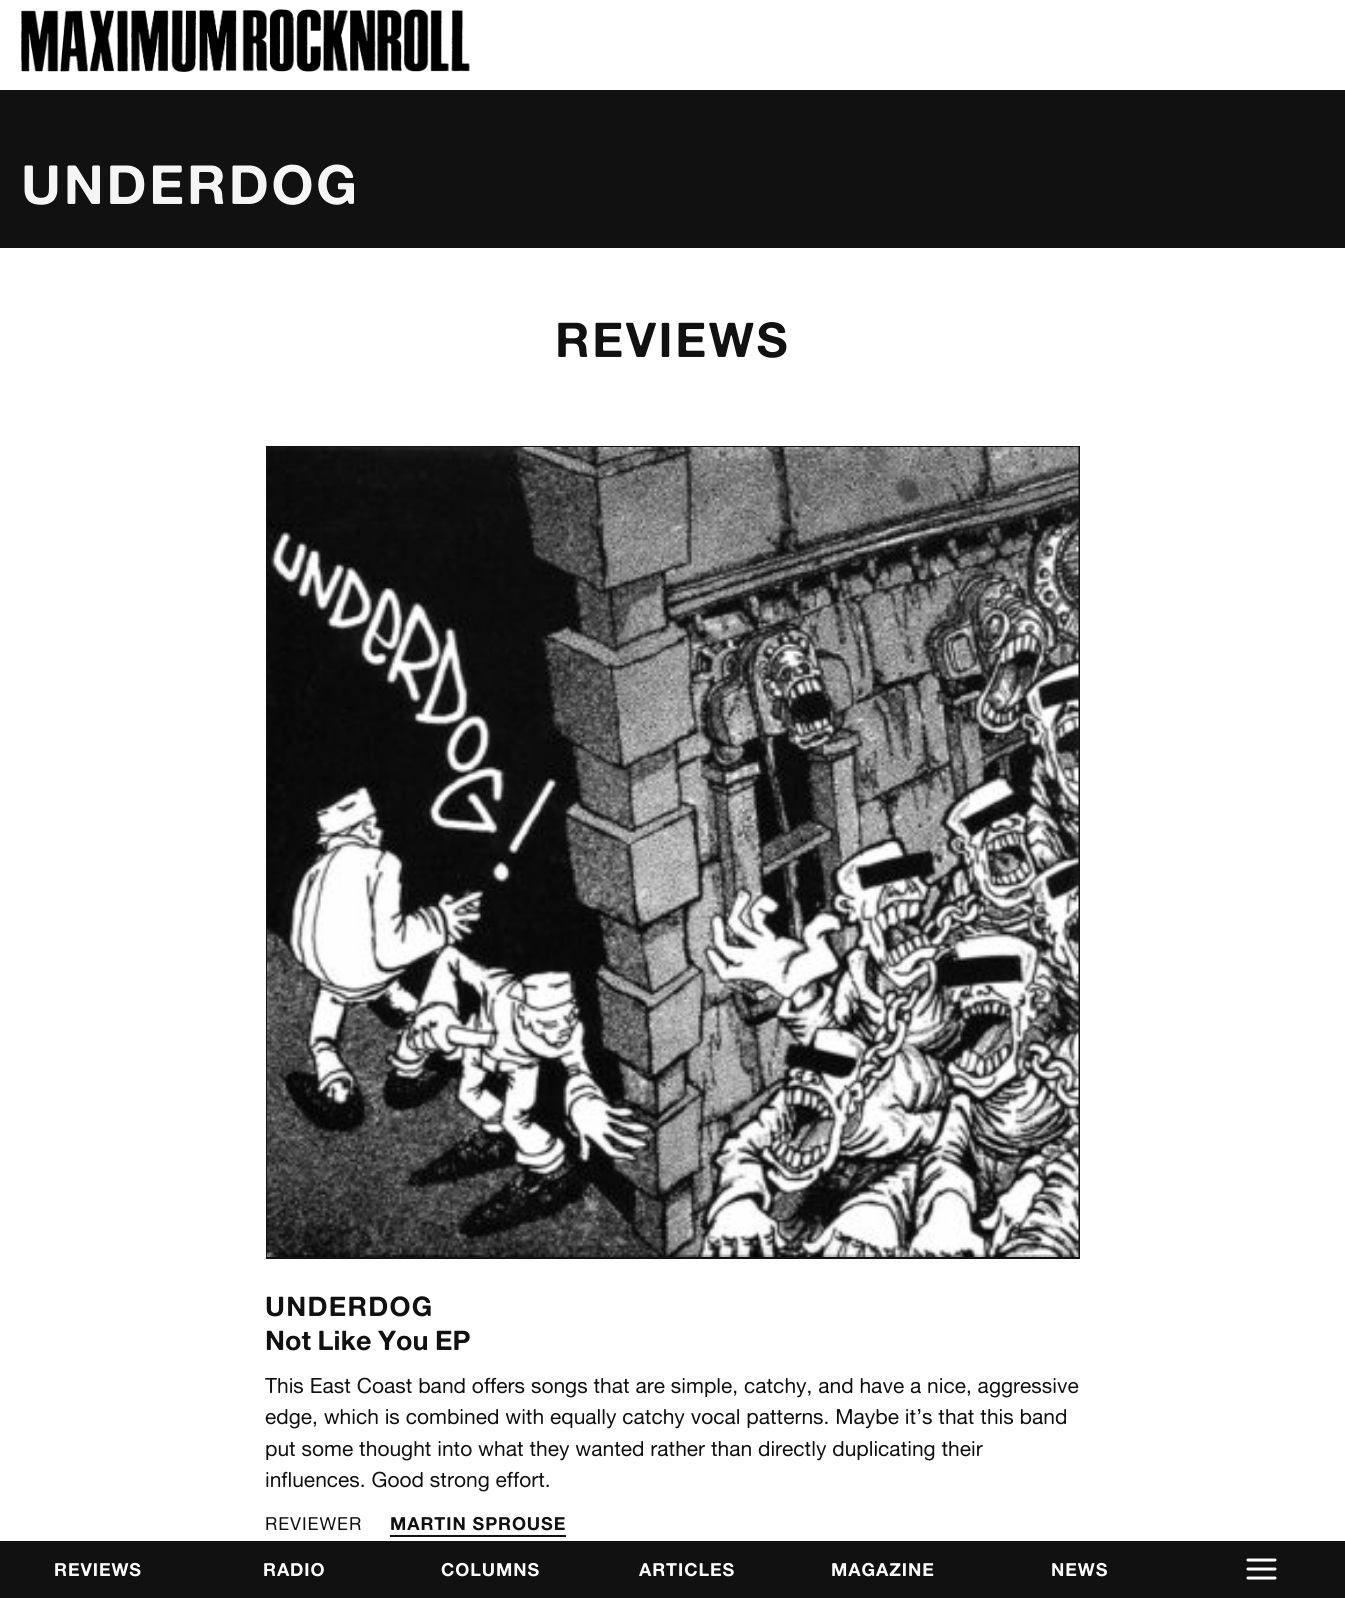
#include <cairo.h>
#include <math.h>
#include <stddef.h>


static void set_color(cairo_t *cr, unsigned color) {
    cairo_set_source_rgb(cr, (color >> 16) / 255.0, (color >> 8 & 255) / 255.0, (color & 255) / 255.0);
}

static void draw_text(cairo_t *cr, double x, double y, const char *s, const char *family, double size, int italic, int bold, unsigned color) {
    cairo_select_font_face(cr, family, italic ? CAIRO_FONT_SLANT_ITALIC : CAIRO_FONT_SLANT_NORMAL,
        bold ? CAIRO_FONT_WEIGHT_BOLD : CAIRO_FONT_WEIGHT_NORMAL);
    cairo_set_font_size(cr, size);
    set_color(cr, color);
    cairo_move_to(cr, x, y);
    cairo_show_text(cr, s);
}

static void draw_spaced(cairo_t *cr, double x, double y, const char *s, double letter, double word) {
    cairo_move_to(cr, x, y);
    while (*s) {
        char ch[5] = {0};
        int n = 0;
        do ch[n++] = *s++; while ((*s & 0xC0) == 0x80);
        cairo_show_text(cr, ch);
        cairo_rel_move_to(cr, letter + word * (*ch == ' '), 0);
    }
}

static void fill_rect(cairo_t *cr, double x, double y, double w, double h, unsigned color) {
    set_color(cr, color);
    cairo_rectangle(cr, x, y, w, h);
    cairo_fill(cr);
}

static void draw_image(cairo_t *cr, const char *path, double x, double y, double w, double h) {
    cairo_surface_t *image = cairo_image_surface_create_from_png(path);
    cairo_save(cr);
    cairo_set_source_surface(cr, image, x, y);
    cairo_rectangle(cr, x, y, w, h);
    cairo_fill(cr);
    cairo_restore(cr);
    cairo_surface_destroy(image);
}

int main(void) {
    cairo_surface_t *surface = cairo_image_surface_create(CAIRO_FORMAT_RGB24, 1345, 1598);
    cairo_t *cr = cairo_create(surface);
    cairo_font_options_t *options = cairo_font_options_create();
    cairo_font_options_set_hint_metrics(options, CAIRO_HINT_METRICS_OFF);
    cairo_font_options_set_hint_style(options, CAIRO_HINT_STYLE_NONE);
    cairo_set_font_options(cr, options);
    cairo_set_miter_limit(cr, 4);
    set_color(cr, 0xFFFFFF);
    cairo_paint(cr);
    fill_rect(cr, 0, 90, 1345, 158, 0x111111);
    cairo_select_font_face(cr, "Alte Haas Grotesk", CAIRO_FONT_SLANT_NORMAL, CAIRO_FONT_WEIGHT_BOLD);
    cairo_set_font_size(cr, 54);
    set_color(cr, 0xF5F5F5);
    draw_spaced(cr, 21, 204, "UNDERDOG", 2.75, 0);
    cairo_set_font_size(cr, 48);
    set_color(cr, 0x111111);
    draw_spaced(cr, 555, 357, "REVIEWS", 2.5, 0);
    cairo_rectangle(cr, 267, 447, 812, 811);
    cairo_stroke(cr);
    draw_image(cr, "assets/img1.png", 267, 447, 812, 810);
    cairo_set_font_size(cr, 27);
    draw_spaced(cr, 265, 1316, "UNDERDOG", 1.25, 0);
    draw_spaced(cr, 265, 1350, "Not Like You EP", 0, -1);
    draw_text(cr, 265, 1393, "This East Coast band offers songs that are simple, catchy, and have a nice, aggressive", "Alte Haas Grotesk", 21, 0, 0, 0x111111);
    draw_text(cr, 265, 1424, "edge, which is combined with equally catchy vocal patterns. Maybe it’s that this band", "Alte Haas Grotesk", 21, 0, 0, 0x111111);
    draw_text(cr, 265, 1456, "put some thought into what they wanted rather than directly duplicating their", "Alte Haas Grotesk", 21, 0, 0, 0x111111);
    draw_text(cr, 265, 1487, "influences. Good strong effort.", "Alte Haas Grotesk", 21, 0, 0, 0x111111);
    cairo_set_font_size(cr, 18);
    draw_spaced(cr, 265, 1530, "REVIEWER", 0.9, 0);
    cairo_select_font_face(cr, "Alte Haas Grotesk", CAIRO_FONT_SLANT_NORMAL, CAIRO_FONT_WEIGHT_BOLD);
    draw_spaced(cr, 390, 1530, "MARTIN SPROUSE", 0.9, 0);
    fill_rect(cr, 390, 1535, 176, 2, 0x111111);
    draw_image(cr, "assets/img2.png", 21, 9, 449, 63);
    fill_rect(cr, 0, 1541, 1345, 57, 0x111111);
    set_color(cr, 0xFCFCFC);
    draw_spaced(cr, 54, 1576, "REVIEWS", 0.9, 0);
    draw_spaced(cr, 263, 1576, "RADIO", 0.9, 0);
    draw_spaced(cr, 441, 1576, "COLUMNS", 0.9, 0);
    draw_spaced(cr, 639, 1576, "ARTICLES", 0.9, 0);
    draw_spaced(cr, 831, 1576, "MAGAZINE", 0.9, 0);
    draw_spaced(cr, 1051, 1576, "NEWS", 0.9, 0);
    draw_image(cr, "assets/img3.png", 1246, 1558, 31, 22);
    cairo_surface_write_to_png(surface, "output.png");
    cairo_font_options_destroy(options);
    cairo_destroy(cr);
    cairo_surface_destroy(surface);
    return 0;
}
